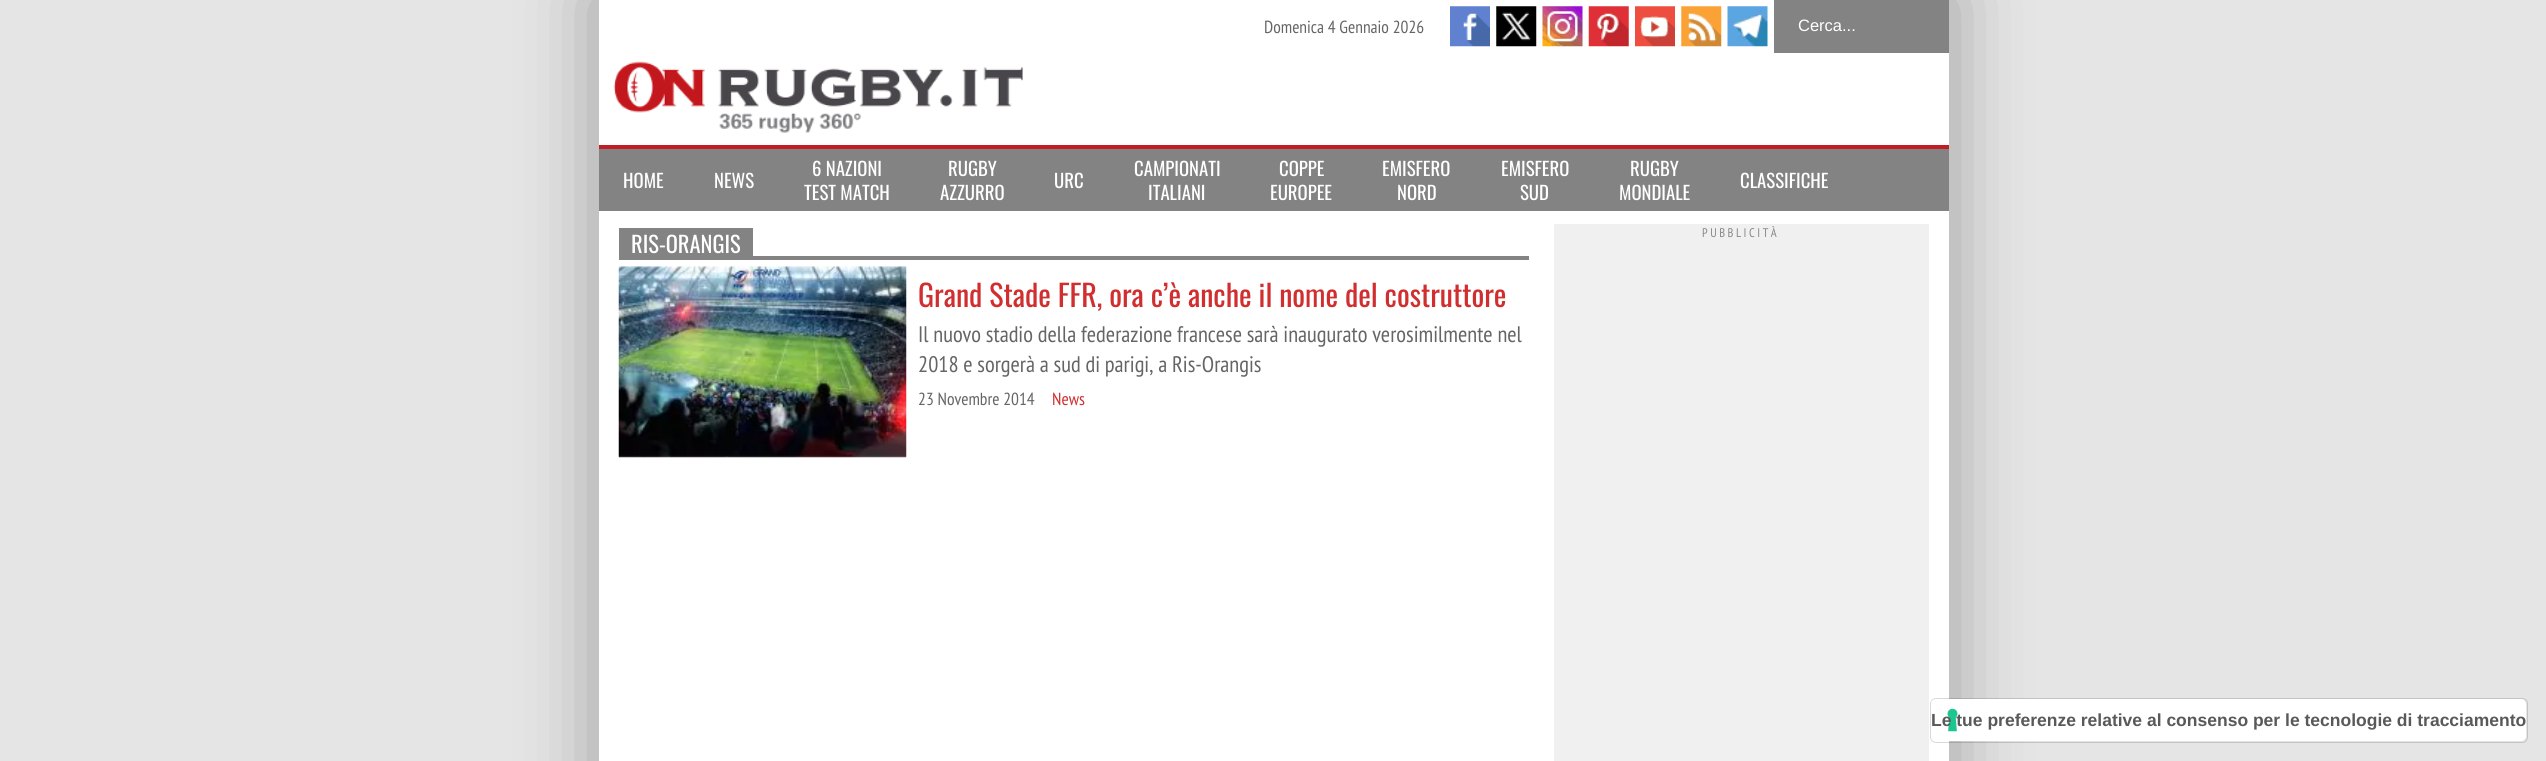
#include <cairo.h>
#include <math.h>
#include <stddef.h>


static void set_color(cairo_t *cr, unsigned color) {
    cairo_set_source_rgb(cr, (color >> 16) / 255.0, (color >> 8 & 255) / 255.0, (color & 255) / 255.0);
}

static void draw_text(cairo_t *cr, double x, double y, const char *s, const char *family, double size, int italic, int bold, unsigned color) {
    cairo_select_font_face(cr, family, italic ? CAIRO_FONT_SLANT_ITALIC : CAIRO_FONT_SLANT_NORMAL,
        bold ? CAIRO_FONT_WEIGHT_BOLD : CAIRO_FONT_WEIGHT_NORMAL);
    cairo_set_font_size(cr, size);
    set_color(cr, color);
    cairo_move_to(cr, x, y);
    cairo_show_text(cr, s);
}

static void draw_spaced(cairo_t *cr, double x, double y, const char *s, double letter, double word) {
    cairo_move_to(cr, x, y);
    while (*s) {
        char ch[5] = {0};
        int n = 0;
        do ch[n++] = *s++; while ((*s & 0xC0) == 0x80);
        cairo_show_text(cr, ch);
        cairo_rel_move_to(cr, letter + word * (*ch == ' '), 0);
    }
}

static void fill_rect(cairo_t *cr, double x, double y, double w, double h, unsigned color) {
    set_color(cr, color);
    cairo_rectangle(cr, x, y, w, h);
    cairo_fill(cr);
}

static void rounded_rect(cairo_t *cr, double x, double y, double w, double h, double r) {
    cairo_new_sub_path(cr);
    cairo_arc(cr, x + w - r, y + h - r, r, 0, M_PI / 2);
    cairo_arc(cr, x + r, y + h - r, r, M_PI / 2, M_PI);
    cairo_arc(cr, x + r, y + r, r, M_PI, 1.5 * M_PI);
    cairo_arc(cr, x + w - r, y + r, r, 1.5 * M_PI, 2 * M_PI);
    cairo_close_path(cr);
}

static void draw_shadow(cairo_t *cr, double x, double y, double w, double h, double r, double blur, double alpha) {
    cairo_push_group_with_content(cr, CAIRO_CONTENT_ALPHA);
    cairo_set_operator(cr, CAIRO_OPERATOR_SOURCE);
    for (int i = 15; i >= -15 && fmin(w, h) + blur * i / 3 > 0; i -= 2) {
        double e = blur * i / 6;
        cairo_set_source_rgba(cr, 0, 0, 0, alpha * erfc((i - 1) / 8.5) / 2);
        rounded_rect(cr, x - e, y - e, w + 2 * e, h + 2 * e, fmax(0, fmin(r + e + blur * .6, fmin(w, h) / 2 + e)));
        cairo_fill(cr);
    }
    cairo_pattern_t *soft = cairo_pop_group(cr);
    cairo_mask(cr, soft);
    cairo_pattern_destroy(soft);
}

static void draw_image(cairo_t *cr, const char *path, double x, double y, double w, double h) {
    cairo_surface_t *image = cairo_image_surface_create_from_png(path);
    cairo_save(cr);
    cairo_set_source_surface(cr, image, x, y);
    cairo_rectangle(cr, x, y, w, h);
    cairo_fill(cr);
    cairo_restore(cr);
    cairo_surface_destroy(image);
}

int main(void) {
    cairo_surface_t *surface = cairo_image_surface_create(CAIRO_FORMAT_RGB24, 2546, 761);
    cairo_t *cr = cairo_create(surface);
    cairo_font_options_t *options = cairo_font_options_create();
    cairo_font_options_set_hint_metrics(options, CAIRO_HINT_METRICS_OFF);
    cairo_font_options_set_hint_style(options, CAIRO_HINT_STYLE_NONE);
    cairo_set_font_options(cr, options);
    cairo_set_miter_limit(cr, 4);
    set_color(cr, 0xE5E5E5);
    cairo_paint(cr);
    set_color(cr, 0x000000);
    draw_shadow(cr, 593, -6, 1362, 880, 0, 37.5, 0.3);
    fill_rect(cr, 599, 0, 1350, 761, 0xFFFFFF);
    draw_text(cr, 1264, 33, "Domenica 4 Gennaio 2026", "PT Sans Narrow", 17.5, 0, 0, 0x656565);
    draw_image(cr, "assets/img1.png", 1450, 6, 40, 41);
    draw_image(cr, "assets/img2.png", 1496, 6, 41, 41);
    draw_image(cr, "assets/img3.png", 1542, 6, 41, 41);
    draw_image(cr, "assets/img4.png", 1588, 6, 41, 41);
    draw_image(cr, "assets/img5.png", 1635, 6, 40, 41);
    draw_image(cr, "assets/img6.png", 1681, 6, 41, 41);
    draw_image(cr, "assets/img7.png", 1727, 6, 41, 41);
    fill_rect(cr, 1774, 0, 175, 53, 0x838383);
    draw_text(cr, 1798, 31, "Cerca...", "Liberation Sans", 16.5, 0, 0, 0xFFFFFF);
    draw_image(cr, "assets/img8.png", 613, 61, 410, 72);
    fill_rect(cr, 599, 149, 1350, 62, 0x838383);
    fill_rect(cr, 599, 145, 1350, 4, 0xC21D24);
    draw_text(cr, 623, 188, "HOME", "Oswald", 18.75, 0, 0, 0xFFFFFF);
    draw_text(cr, 714, 188, "NEWS", "Oswald", 18.75, 0, 0, 0xFFFFFF);
    draw_text(cr, 812, 176, "6 NAZIONI", "Oswald", 18.75, 0, 0, 0xFFFFFF);
    draw_text(cr, 804, 200, "TEST MATCH", "Oswald", 18.75, 0, 0, 0xFFFFFF);
    draw_text(cr, 948, 176, "RUGBY", "Oswald", 18.75, 0, 0, 0xFFFFFF);
    draw_text(cr, 940, 200, "AZZURRO", "Oswald", 18.75, 0, 0, 0xFFFFFF);
    draw_text(cr, 1054, 188, "URC", "Oswald", 18.75, 0, 0, 0xFFFFFF);
    draw_text(cr, 1134, 176, "CAMPIONATI", "Oswald", 18.75, 0, 0, 0xFFFFFF);
    draw_text(cr, 1148, 200, "ITALIANI", "Oswald", 18.75, 0, 0, 0xFFFFFF);
    draw_text(cr, 1279, 176, "COPPE", "Oswald", 18.75, 0, 0, 0xFFFFFF);
    draw_text(cr, 1270, 200, "EUROPEE", "Oswald", 18.75, 0, 0, 0xFFFFFF);
    draw_text(cr, 1382, 176, "EMISFERO", "Oswald", 18.75, 0, 0, 0xFFFFFF);
    draw_text(cr, 1397, 200, "NORD", "Oswald", 18.75, 0, 0, 0xFFFFFF);
    draw_text(cr, 1501, 176, "EMISFERO", "Oswald", 18.75, 0, 0, 0xFFFFFF);
    draw_text(cr, 1520, 200, "SUD", "Oswald", 18.75, 0, 0, 0xFFFFFF);
    draw_text(cr, 1630, 176, "RUGBY", "Oswald", 18.75, 0, 0, 0xFFFFFF);
    draw_text(cr, 1619, 200, "MONDIALE", "Oswald", 18.75, 0, 0, 0xFFFFFF);
    draw_text(cr, 1740, 188, "CLASSIFICHE", "Oswald", 18.75, 0, 0, 0xFFFFFF);
    fill_rect(cr, 1554, 224, 375, 537, 0xF0F0F0);
    cairo_select_font_face(cr, "PT Sans Narrow", CAIRO_FONT_SLANT_NORMAL, CAIRO_FONT_WEIGHT_NORMAL);
    cairo_set_font_size(cr, 12.5);
    set_color(cr, 0x888888);
    draw_spaced(cr, 1702, 237, "PUBBLICITÀ", 2.5, 0);
    fill_rect(cr, 753, 256, 776, 4, 0x838383);
    fill_rect(cr, 619, 228, 134, 32, 0x838383);
    draw_text(cr, 631, 253, "RIS-ORANGIS", "Oswald", 22.5, 0, 0, 0xFFFFFF);
    draw_image(cr, "assets/img9.png", 618, 266, 289, 192);
    draw_text(cr, 918, 307, "Grand Stade FFR, ora c’è anche il nome del costruttore", "Oswald", 30, 0, 0, 0xD12F2F);
    draw_text(cr, 918, 342, "Il nuovo stadio della federazione francese sarà inaugurato verosimilmente nel", "PT Sans Narrow", 22.5, 0, 0, 0x656565);
    draw_text(cr, 918, 372, "2018 e sorgerà a sud di parigi, a Ris-Orangis", "PT Sans Narrow", 22.5, 0, 0, 0x656565);
    draw_text(cr, 918, 405, "23 Novembre 2014", "PT Sans Narrow", 17.5, 0, 0, 0x656565);
    draw_text(cr, 1052, 405, "News", "PT Sans Narrow", 17.5, 0, 0, 0xD12F2F);
    rounded_rect(cr, 1930.5, 698.5, 597, 44, 5.5);
    cairo_set_source_rgba(cr, 0, 0, 0, 0.15);
    cairo_set_line_width(cr, 1);
    cairo_stroke(cr);
    set_color(cr, 0xFFFFFF);
    rounded_rect(cr, 1931, 699, 595, 42, 5);
    cairo_fill(cr);
    draw_image(cr, "assets/img10.png", 1947, 708, 11, 24);
    draw_text(cr, 1931, 726, "Le tue preferenze relative al consenso per le tecnologie di tracciamento", "Liberation Sans", 17.5, 0, 1, 0x595959);
    cairo_surface_write_to_png(surface, "output.png");
    cairo_font_options_destroy(options);
    cairo_destroy(cr);
    cairo_surface_destroy(surface);
    return 0;
}
